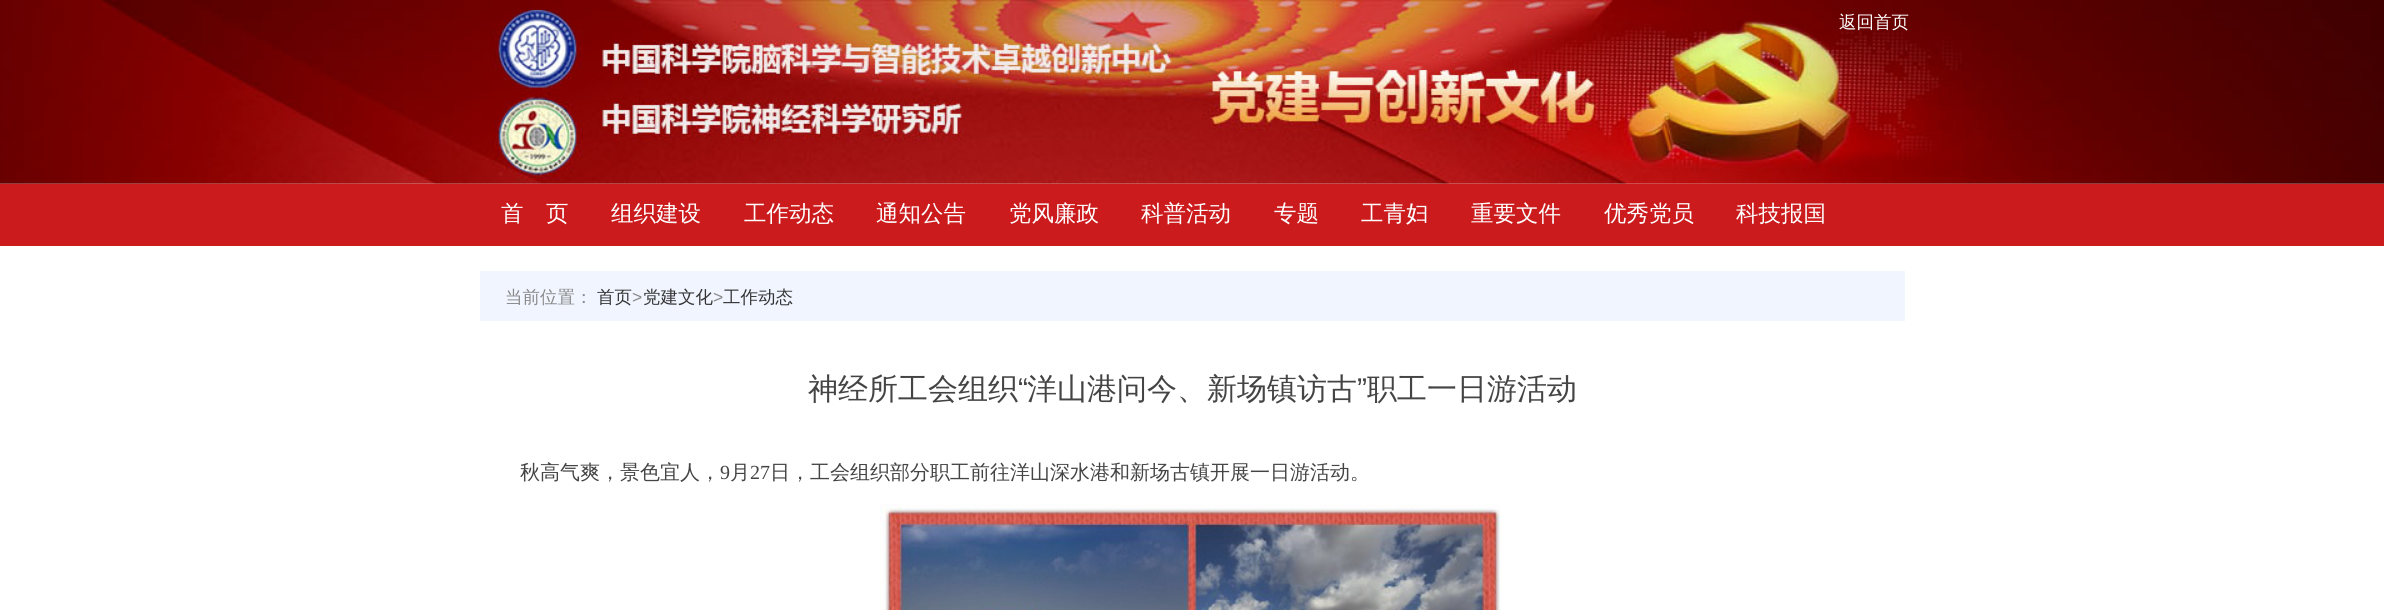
#include <cairo.h>
#include <math.h>
#include <stddef.h>


static void set_color(cairo_t *cr, unsigned color) {
    cairo_set_source_rgb(cr, (color >> 16) / 255.0, (color >> 8 & 255) / 255.0, (color & 255) / 255.0);
}

static void draw_text(cairo_t *cr, double x, double y, const char *s, const char *family, double size, int italic, int bold, unsigned color) {
    cairo_select_font_face(cr, family, italic ? CAIRO_FONT_SLANT_ITALIC : CAIRO_FONT_SLANT_NORMAL,
        bold ? CAIRO_FONT_WEIGHT_BOLD : CAIRO_FONT_WEIGHT_NORMAL);
    cairo_set_font_size(cr, size);
    set_color(cr, color);
    cairo_move_to(cr, x, y);
    cairo_show_text(cr, s);
}

static void fill_rect(cairo_t *cr, double x, double y, double w, double h, unsigned color) {
    set_color(cr, color);
    cairo_rectangle(cr, x, y, w, h);
    cairo_fill(cr);
}

static void draw_image(cairo_t *cr, const char *path, double x, double y, double w, double h) {
    cairo_surface_t *image = cairo_image_surface_create_from_png(path);
    cairo_save(cr);
    cairo_set_source_surface(cr, image, x, y);
    cairo_rectangle(cr, x, y, w, h);
    cairo_fill(cr);
    cairo_restore(cr);
    cairo_surface_destroy(image);
}

int main(void) {
    cairo_surface_t *surface = cairo_image_surface_create(CAIRO_FORMAT_RGB24, 2384, 610);
    cairo_t *cr = cairo_create(surface);
    cairo_font_options_t *options = cairo_font_options_create();
    cairo_font_options_set_hint_metrics(options, CAIRO_HINT_METRICS_OFF);
    cairo_font_options_set_hint_style(options, CAIRO_HINT_STYLE_NONE);
    cairo_set_font_options(cr, options);
    cairo_set_miter_limit(cr, 4);
    set_color(cr, 0xFFFFFF);
    cairo_paint(cr);
    draw_image(cr, "assets/img1.png", 0, 0, 2384, 184);
    draw_text(cr, 1839, 28, "返回首页", "WenQuanYi Zen Hei Medium", 17.5, 0, 0, 0xFFFFFF);
    fill_rect(cr, 0, 184, 2384, 62, 0xCB1B1D);
    draw_text(cr, 501, 221, "首　页", "WenQuanYi Zen Hei Medium", 22.5, 0, 0, 0xFFFFFF);
    draw_text(cr, 611, 221, "组织建设", "WenQuanYi Zen Hei Medium", 22.5, 0, 0, 0xFFFFFF);
    draw_text(cr, 744, 221, "工作动态", "WenQuanYi Zen Hei Medium", 22.5, 0, 0, 0xFFFFFF);
    draw_text(cr, 876, 221, "通知公告", "WenQuanYi Zen Hei Medium", 22.5, 0, 0, 0xFFFFFF);
    draw_text(cr, 1009, 221, "党风廉政", "WenQuanYi Zen Hei Medium", 22.5, 0, 0, 0xFFFFFF);
    draw_text(cr, 1141, 221, "科普活动", "WenQuanYi Zen Hei Medium", 22.5, 0, 0, 0xFFFFFF);
    draw_text(cr, 1274, 221, "专题", "WenQuanYi Zen Hei Medium", 22.5, 0, 0, 0xFFFFFF);
    draw_text(cr, 1361, 221, "工青妇", "WenQuanYi Zen Hei Medium", 22.5, 0, 0, 0xFFFFFF);
    draw_text(cr, 1471, 221, "重要文件", "WenQuanYi Zen Hei Medium", 22.5, 0, 0, 0xFFFFFF);
    draw_text(cr, 1604, 221, "优秀党员", "WenQuanYi Zen Hei Medium", 22.5, 0, 0, 0xFFFFFF);
    draw_text(cr, 1736, 221, "科技报国", "WenQuanYi Zen Hei Medium", 22.5, 0, 0, 0xFFFFFF);
    fill_rect(cr, 480, 271, 1425, 50, 0xF1F5FF);
    draw_text(cr, 505, 303, "当前位置：", "WenQuanYi Zen Hei Medium", 17.5, 0, 0, 0x888888);
    draw_text(cr, 597, 303, "首页", "WenQuanYi Zen Hei Medium", 17.5, 0, 0, 0x333333);
    draw_text(cr, 632, 303, ">", "Liberation Sans", 17.5, 0, 0, 0x888888);
    draw_text(cr, 643, 303, "党建文化", "WenQuanYi Zen Hei Medium", 17.5, 0, 0, 0x333333);
    draw_text(cr, 713, 303, ">", "Liberation Sans", 17.5, 0, 0, 0x888888);
    draw_text(cr, 723, 303, "工作动态", "WenQuanYi Zen Hei Medium", 17.5, 0, 0, 0x333333);
    draw_text(cr, 808, 399, "神经所工会组织", "WenQuanYi Zen Hei Medium", 30, 0, 0, 0x444444);
    draw_text(cr, 1018, 399, "“", "Liberation Sans", 30, 0, 0, 0x444444);
    draw_text(cr, 1027, 399, "洋山港问今、新场镇访古", "WenQuanYi Zen Hei Medium", 30, 0, 0, 0x444444);
    draw_text(cr, 1357, 399, "”", "Liberation Sans", 30, 0, 0, 0x444444);
    draw_text(cr, 1367, 399, "职工一日游活动", "WenQuanYi Zen Hei Medium", 30, 0, 0, 0x444444);
    draw_text(cr, 520, 479, "秋高气爽，景色宜人，", "WenQuanYi Zen Hei Medium", 20, 0, 0, 0x444444);
    draw_text(cr, 720, 479, "9", "Liberation Serif", 20, 0, 0, 0x444444);
    draw_text(cr, 730, 479, "月", "WenQuanYi Zen Hei Medium", 20, 0, 0, 0x444444);
    draw_text(cr, 750, 479, "27", "Liberation Serif", 20, 0, 0, 0x444444);
    draw_text(cr, 770, 479, "日，工会组织部分职工前往洋山深水港和新场古镇开展一日游活动。", "WenQuanYi Zen Hei Medium", 20, 0, 0, 0x444444);
    draw_image(cr, "assets/img2.png", 880, 504, 621, 106);
    cairo_surface_write_to_png(surface, "output.png");
    cairo_font_options_destroy(options);
    cairo_destroy(cr);
    cairo_surface_destroy(surface);
    return 0;
}
